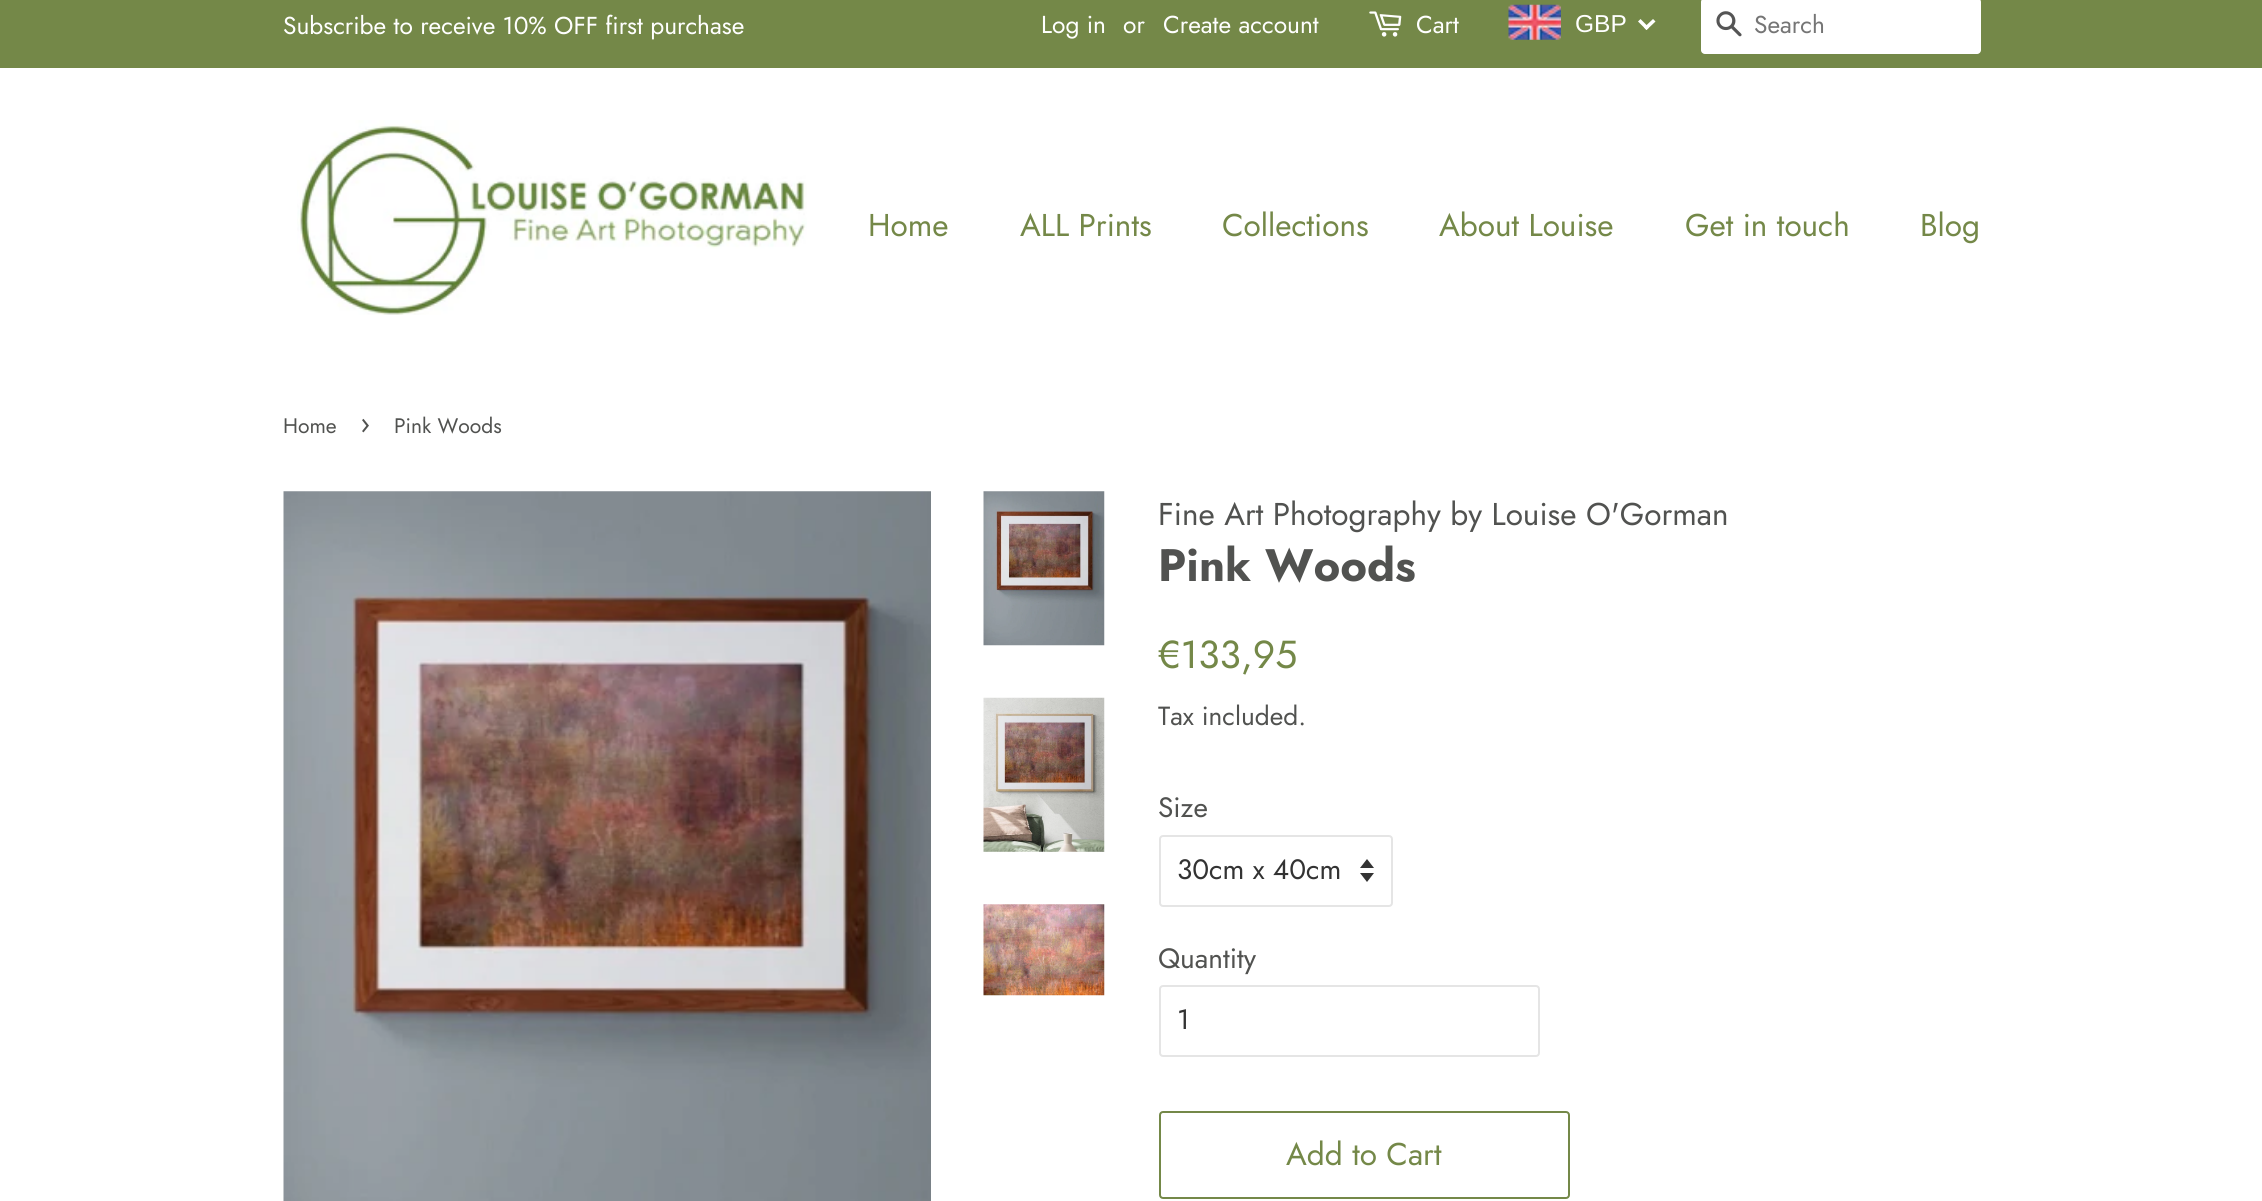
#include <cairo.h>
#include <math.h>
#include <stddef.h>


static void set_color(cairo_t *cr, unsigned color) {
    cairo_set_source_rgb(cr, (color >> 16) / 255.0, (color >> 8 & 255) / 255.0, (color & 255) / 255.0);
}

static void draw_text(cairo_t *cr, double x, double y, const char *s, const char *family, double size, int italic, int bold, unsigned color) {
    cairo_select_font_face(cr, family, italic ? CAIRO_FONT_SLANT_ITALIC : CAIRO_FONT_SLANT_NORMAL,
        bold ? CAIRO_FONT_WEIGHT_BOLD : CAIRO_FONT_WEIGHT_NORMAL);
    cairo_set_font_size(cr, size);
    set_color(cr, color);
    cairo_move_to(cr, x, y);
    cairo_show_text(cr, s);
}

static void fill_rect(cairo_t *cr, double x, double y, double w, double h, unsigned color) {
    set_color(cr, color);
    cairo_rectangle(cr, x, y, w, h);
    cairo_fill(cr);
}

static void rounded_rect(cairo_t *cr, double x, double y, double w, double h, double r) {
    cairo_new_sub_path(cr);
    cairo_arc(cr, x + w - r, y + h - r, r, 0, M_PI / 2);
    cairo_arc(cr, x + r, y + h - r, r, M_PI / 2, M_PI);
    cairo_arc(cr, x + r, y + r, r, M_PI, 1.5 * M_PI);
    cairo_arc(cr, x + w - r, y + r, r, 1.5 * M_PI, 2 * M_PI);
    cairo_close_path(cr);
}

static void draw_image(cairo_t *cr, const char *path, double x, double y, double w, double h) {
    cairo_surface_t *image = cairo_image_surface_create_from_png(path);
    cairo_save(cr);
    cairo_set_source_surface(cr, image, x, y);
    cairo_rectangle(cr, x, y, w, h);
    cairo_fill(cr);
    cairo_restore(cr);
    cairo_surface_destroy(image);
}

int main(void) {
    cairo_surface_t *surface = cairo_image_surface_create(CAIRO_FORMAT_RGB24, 2262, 1201);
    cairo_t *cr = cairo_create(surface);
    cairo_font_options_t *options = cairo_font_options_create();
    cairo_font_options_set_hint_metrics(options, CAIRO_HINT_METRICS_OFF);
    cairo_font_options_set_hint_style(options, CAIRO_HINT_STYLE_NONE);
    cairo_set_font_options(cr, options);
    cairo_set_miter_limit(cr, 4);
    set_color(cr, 0xFFFFFF);
    cairo_paint(cr);
    fill_rect(cr, 0, 0, 2262, 68, 0x748848);
    draw_text(cr, 283, 34, "Subscribe to receive 10% OFF first purchase", "Jost", 24.5, 0, 0, 0xFFFFFF);
    draw_text(cr, 1041, 33, "Log in", "Jost", 24.5, 0, 0, 0xFFFFFF);
    draw_text(cr, 1123, 33, "or", "Jost", 24.5, 0, 0, 0xFFFFFF);
    draw_text(cr, 1163, 33, "Create account", "Jost", 24.5, 0, 0, 0xFFFFFF);
    draw_image(cr, "assets/img1.png", 1369, 11, 33, 26);
    draw_text(cr, 1416, 33, "Cart", "Jost", 24.5, 0, 0, 0xFFFFFF);
    draw_image(cr, "assets/img2.png", 1508, 4, 53, 36);
    draw_text(cr, 1575, 32, "GBP", "Liberation Sans", 24.5, 0, 0, 0xFFFFFF);
    cairo_new_path(cr);
    cairo_move_to(cr, 1653, 19);
    cairo_line_to(cr, 1655.5, 21.5);
    cairo_line_to(cr, 1646.5, 30);
    cairo_line_to(cr, 1644, 27.5);
    cairo_close_path(cr);
    cairo_fill(cr);
    cairo_new_path(cr);
    cairo_move_to(cr, 1640.5, 19);
    cairo_line_to(cr, 1649, 27.5);
    cairo_line_to(cr, 1646.5, 30);
    cairo_line_to(cr, 1638, 21.5);
    cairo_close_path(cr);
    cairo_fill(cr);
    rounded_rect(cr, 1701, -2, 280, 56, 4);
    cairo_fill(cr);
    draw_image(cr, "assets/img3.png", 1716, 11, 26, 26);
    draw_text(cr, 1754, 33, "Search", "Jost", 24.5, 0, 0, 0x757575);
    draw_image(cr, "assets/img4.png", 297, 120, 510, 195);
    draw_text(cr, 868, 236, "Home", "Jost", 31.5, 0, 0, 0x748848);
    draw_text(cr, 1020, 236, "ALL Prints", "Jost", 31.5, 0, 0, 0x748848);
    draw_text(cr, 1222, 236, "Collections", "Jost", 31.5, 0, 0, 0x748848);
    draw_text(cr, 1439, 236, "About Louise", "Jost", 31.5, 0, 0, 0x748848);
    draw_text(cr, 1685, 236, "Get in touch", "Jost", 31.5, 0, 0, 0x748848);
    draw_text(cr, 1920, 236, "Blog", "Jost", 31.5, 0, 0, 0x748848);
    draw_text(cr, 283, 433, "Home", "Jost", 21, 0, 0, 0x515250);
    draw_text(cr, 360, 433, "›", "Jost", 29, 0, 0, 0x515250);
    draw_text(cr, 394, 433, "Pink Woods", "Jost", 21, 0, 0, 0x515250);
    draw_image(cr, "assets/img5.png", 283, 491, 648, 710);
    draw_image(cr, "assets/img6.png", 983, 491, 122, 155);
    draw_image(cr, "assets/img7.png", 983, 697, 122, 155);
    draw_image(cr, "assets/img8.png", 983, 904, 122, 92);
    draw_text(cr, 1158, 525, "Fine Art Photography by Louise O'Gorman", "Jost", 31.5, 0, 0, 0x515250);
    draw_text(cr, 1158, 581, "Pink Woods", "Jost", 45.5, 0, 1, 0x515250);
    draw_text(cr, 1158, 668, "€133,95", "Jost", 39, 0, 0, 0x748848);
    draw_text(cr, 1158, 725, "Tax included.", "Jost", 26.25, 0, 0, 0x515250);
    draw_text(cr, 1158, 817, "Size", "Jost", 28, 0, 0, 0x515250);
    set_color(cr, 0x333333);
    cairo_new_path(cr);
    cairo_move_to(cr, 1360, 873);
    cairo_line_to(cr, 1367, 882);
    cairo_line_to(cr, 1374, 873);
    cairo_close_path(cr);
    cairo_move_to(cr, 1367, 859);
    cairo_line_to(cr, 1360, 868);
    cairo_line_to(cr, 1374, 868);
    cairo_close_path(cr);
    cairo_fill(cr);
    rounded_rect(cr, 1160, 836, 232, 70, 3);
    set_color(cr, 0xE5E5E5);
    cairo_stroke(cr);
    draw_text(cr, 1177, 879, "30cm x 40cm", "Jost", 28, 0, 0, 0x333333);
    draw_text(cr, 1158, 968, "Quantity", "Jost", 28, 0, 0, 0x515250);
    rounded_rect(cr, 1160, 986, 379, 70, 3);
    set_color(cr, 0xE5E5E5);
    cairo_stroke(cr);
    draw_text(cr, 1177, 1029, "1", "Jost", 28, 0, 0, 0x333333);
    rounded_rect(cr, 1160, 1112, 409, 86, 3);
    set_color(cr, 0x748848);
    cairo_stroke(cr);
    draw_text(cr, 1286, 1165, "Add to Cart", "Jost", 31.5, 0, 0, 0x748848);
    cairo_surface_write_to_png(surface, "output.png");
    cairo_font_options_destroy(options);
    cairo_destroy(cr);
    cairo_surface_destroy(surface);
    return 0;
}
